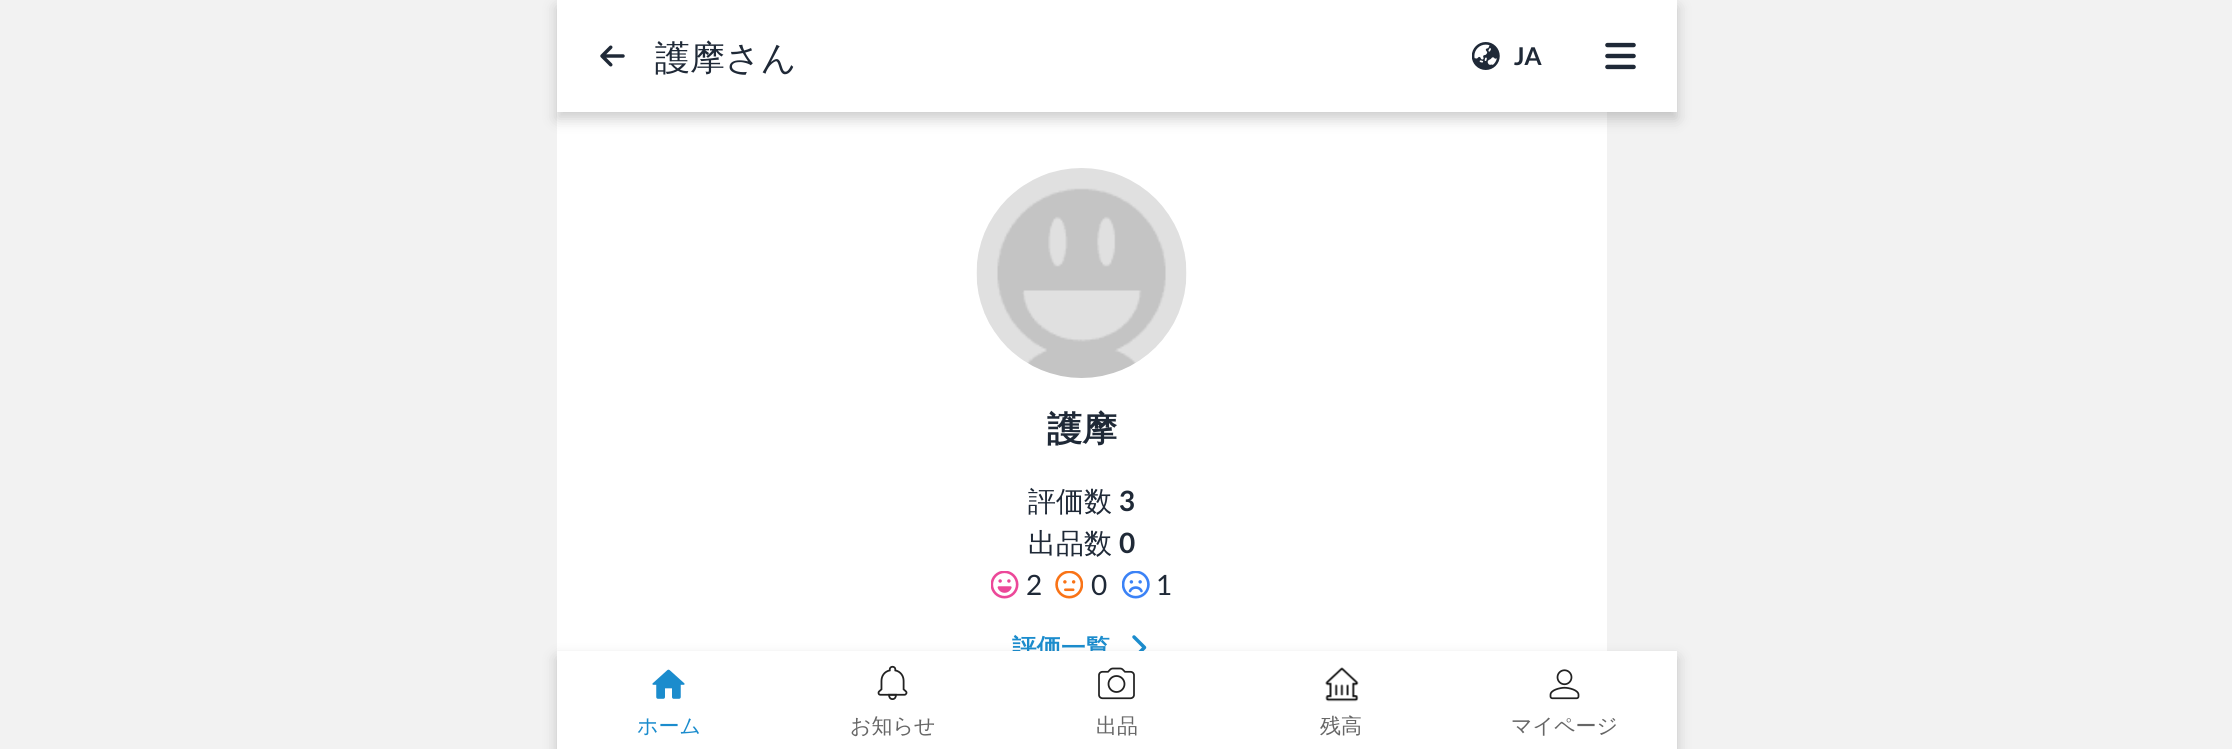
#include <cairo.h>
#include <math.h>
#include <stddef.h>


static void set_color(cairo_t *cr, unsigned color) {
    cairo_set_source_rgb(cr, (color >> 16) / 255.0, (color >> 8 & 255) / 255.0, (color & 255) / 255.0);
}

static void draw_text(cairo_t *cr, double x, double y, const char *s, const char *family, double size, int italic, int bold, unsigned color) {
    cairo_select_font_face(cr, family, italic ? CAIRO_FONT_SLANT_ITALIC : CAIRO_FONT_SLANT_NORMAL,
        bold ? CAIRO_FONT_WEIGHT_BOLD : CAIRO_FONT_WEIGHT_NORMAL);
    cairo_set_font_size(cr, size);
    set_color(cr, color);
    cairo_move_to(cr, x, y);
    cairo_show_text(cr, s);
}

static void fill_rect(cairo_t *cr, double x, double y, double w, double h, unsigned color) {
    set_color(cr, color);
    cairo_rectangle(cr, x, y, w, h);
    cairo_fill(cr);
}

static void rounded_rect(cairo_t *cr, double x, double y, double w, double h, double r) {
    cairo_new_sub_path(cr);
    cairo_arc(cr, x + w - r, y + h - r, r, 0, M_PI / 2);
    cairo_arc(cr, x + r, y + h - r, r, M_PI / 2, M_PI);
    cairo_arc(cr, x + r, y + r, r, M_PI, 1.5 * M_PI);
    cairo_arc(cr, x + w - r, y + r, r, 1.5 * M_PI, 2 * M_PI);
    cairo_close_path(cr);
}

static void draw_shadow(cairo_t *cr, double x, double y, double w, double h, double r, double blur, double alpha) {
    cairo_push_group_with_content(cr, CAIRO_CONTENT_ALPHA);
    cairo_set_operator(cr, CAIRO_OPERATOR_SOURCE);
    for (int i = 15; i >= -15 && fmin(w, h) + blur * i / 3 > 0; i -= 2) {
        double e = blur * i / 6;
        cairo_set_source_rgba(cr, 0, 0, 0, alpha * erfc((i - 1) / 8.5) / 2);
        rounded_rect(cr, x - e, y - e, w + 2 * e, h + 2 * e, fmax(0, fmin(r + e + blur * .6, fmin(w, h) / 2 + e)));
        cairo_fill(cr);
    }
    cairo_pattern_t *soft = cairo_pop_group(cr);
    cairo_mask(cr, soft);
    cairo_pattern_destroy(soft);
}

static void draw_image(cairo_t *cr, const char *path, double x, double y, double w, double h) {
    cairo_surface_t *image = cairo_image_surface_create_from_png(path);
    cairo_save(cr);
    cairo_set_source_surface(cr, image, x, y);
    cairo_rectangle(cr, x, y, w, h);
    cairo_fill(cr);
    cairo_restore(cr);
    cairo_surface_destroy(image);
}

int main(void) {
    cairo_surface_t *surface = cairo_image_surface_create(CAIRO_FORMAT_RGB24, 2232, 749);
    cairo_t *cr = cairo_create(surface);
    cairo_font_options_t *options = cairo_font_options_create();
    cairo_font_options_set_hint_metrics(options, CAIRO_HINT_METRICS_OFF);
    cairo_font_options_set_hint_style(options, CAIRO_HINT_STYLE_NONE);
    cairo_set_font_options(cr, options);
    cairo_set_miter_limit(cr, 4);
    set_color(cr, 0xF2F2F2);
    cairo_paint(cr);
    fill_rect(cr, 557, 112, 1050, 539, 0xFFFFFF);
    set_color(cr, 0x000000);
    draw_shadow(cr, 557, 7, 1120, 112, 0, 7, 0.2);
    fill_rect(cr, 557, 0, 1120, 112, 0xFFFFFF);
    draw_image(cr, "assets/img1.png", 600, 45, 25, 22);
    draw_text(cr, 655, 70, "護摩さん", "WenQuanYi Zen Hei Medium", 35, 0, 0, 0x1F2937);
    draw_image(cr, "assets/img2.png", 1472, 42, 28, 28);
    draw_text(cr, 1514, 65, "JA", "Lato", 24.5, 0, 1, 0x1F2937);
    draw_image(cr, "assets/img3.png", 1605, 42, 31, 28);
    draw_image(cr, "assets/img4.png", 976, 168, 211, 210);
    draw_text(cr, 1047, 441, "護摩", "WenQuanYi Zen Hei", 35, 0, 1, 0x1F2937);
    draw_text(cr, 1028, 511, "評価数", "WenQuanYi Zen Hei Medium", 28, 0, 0, 0x1F2937);
    draw_text(cr, 1119, 511, "3", "Lato", 28, 0, 1, 0x1F2937);
    draw_text(cr, 1028, 553, "出品数", "WenQuanYi Zen Hei Medium", 28, 0, 0, 0x1F2937);
    draw_text(cr, 1119, 553, "0", "Lato", 28, 0, 1, 0x1F2937);
    draw_image(cr, "assets/img5.png", 991, 571, 28, 28);
    draw_text(cr, 1026, 595, "2", "Lato", 28, 0, 0, 0x1F2937);
    draw_image(cr, "assets/img6.png", 1055, 571, 28, 28);
    draw_text(cr, 1091, 595, "0", "Lato", 28, 0, 0, 0x1F2937);
    draw_image(cr, "assets/img7.png", 1122, 571, 28, 28);
    draw_text(cr, 1156, 595, "1", "Lato", 28, 0, 0, 0x1F2937);
    draw_text(cr, 1012, 656, "評価一覧", "WenQuanYi Zen Hei", 24.5, 0, 1, 0x1B8CCD);
    draw_image(cr, "assets/img8.png", 1132, 635, 15, 16);
    set_color(cr, 0x000000);
    draw_shadow(cr, 557, 658, 1120, 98, 0, 7, 0.2);
    fill_rect(cr, 557, 651, 1120, 98, 0xFFFFFF);
    draw_image(cr, "assets/img9.png", 652, 669, 33, 30);
    draw_text(cr, 637, 733, "ホーム", "WenQuanYi Zen Hei Medium", 21, 0, 0, 0x1B8CCD);
    draw_image(cr, "assets/img10.png", 877, 665, 31, 35);
    draw_text(cr, 850, 733, "お知らせ", "WenQuanYi Zen Hei Medium", 21, 0, 0, 0x666666);
    draw_image(cr, "assets/img11.png", 1098, 667, 37, 33);
    draw_text(cr, 1096, 733, "出品", "WenQuanYi Zen Hei Medium", 21, 0, 0, 0x666666);
    draw_image(cr, "assets/img12.png", 1325, 667, 34, 35);
    draw_text(cr, 1320, 733, "残高", "WenQuanYi Zen Hei Medium", 21, 0, 0, 0x666666);
    draw_image(cr, "assets/img13.png", 1549, 669, 31, 31);
    draw_text(cr, 1511, 733, "マイページ", "WenQuanYi Zen Hei Medium", 21, 0, 0, 0x666666);
    cairo_surface_write_to_png(surface, "output.png");
    cairo_font_options_destroy(options);
    cairo_destroy(cr);
    cairo_surface_destroy(surface);
    return 0;
}
